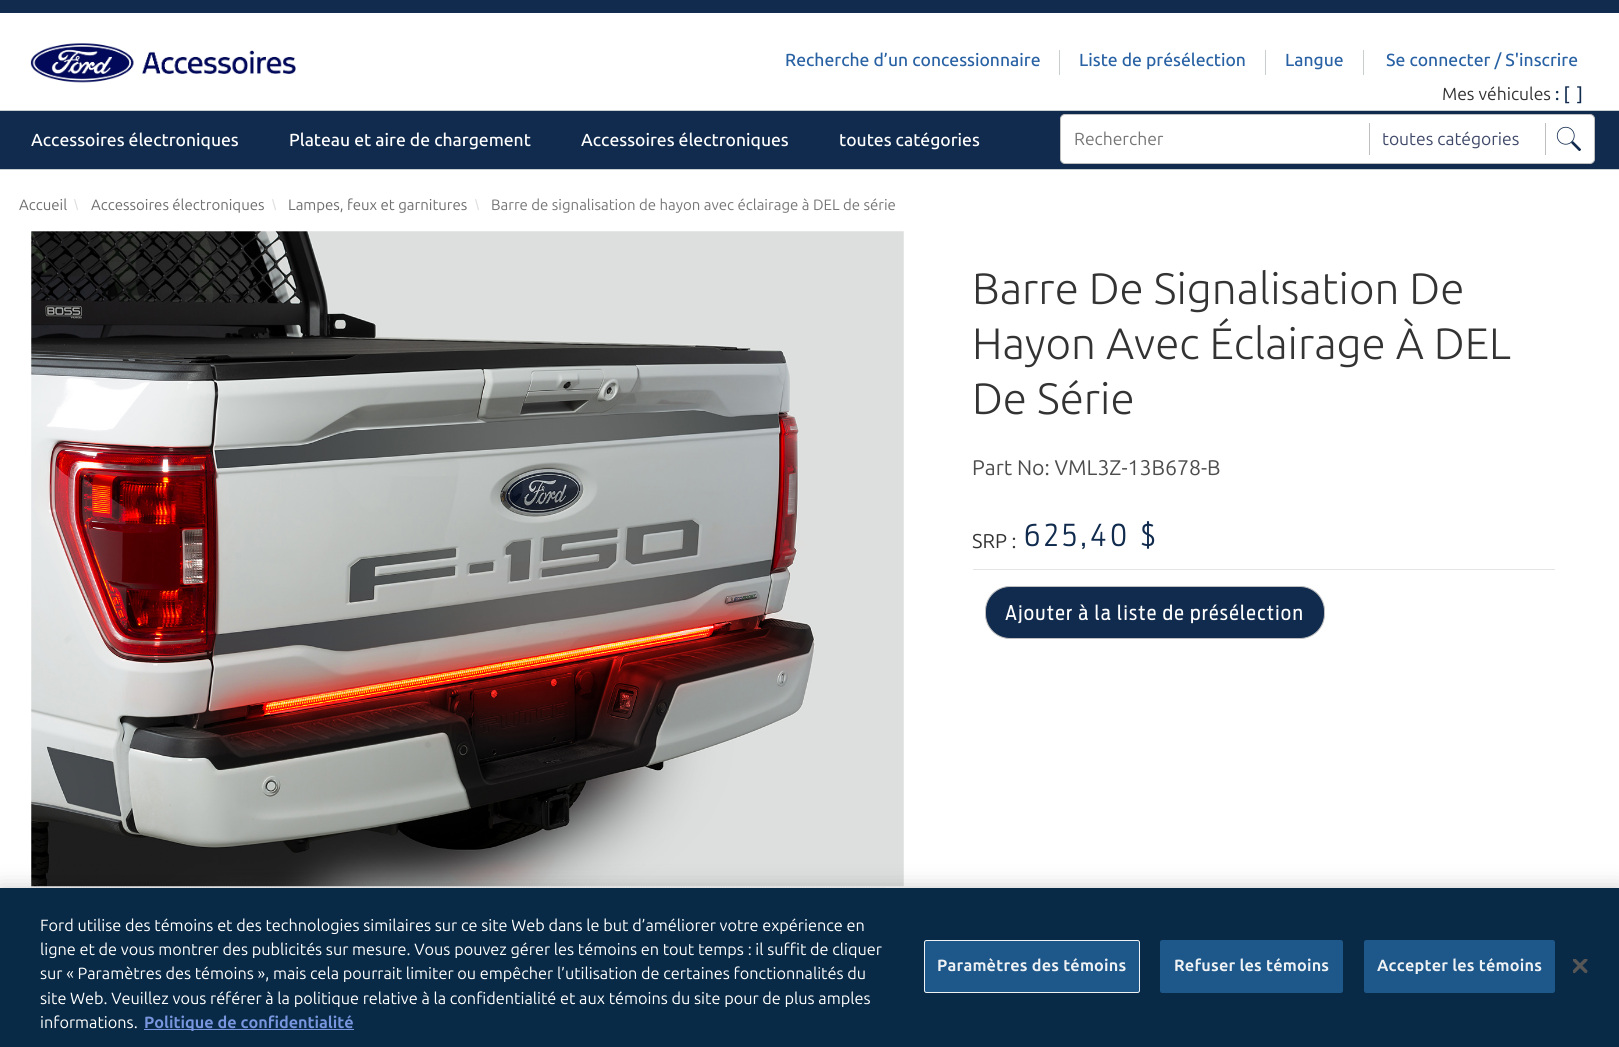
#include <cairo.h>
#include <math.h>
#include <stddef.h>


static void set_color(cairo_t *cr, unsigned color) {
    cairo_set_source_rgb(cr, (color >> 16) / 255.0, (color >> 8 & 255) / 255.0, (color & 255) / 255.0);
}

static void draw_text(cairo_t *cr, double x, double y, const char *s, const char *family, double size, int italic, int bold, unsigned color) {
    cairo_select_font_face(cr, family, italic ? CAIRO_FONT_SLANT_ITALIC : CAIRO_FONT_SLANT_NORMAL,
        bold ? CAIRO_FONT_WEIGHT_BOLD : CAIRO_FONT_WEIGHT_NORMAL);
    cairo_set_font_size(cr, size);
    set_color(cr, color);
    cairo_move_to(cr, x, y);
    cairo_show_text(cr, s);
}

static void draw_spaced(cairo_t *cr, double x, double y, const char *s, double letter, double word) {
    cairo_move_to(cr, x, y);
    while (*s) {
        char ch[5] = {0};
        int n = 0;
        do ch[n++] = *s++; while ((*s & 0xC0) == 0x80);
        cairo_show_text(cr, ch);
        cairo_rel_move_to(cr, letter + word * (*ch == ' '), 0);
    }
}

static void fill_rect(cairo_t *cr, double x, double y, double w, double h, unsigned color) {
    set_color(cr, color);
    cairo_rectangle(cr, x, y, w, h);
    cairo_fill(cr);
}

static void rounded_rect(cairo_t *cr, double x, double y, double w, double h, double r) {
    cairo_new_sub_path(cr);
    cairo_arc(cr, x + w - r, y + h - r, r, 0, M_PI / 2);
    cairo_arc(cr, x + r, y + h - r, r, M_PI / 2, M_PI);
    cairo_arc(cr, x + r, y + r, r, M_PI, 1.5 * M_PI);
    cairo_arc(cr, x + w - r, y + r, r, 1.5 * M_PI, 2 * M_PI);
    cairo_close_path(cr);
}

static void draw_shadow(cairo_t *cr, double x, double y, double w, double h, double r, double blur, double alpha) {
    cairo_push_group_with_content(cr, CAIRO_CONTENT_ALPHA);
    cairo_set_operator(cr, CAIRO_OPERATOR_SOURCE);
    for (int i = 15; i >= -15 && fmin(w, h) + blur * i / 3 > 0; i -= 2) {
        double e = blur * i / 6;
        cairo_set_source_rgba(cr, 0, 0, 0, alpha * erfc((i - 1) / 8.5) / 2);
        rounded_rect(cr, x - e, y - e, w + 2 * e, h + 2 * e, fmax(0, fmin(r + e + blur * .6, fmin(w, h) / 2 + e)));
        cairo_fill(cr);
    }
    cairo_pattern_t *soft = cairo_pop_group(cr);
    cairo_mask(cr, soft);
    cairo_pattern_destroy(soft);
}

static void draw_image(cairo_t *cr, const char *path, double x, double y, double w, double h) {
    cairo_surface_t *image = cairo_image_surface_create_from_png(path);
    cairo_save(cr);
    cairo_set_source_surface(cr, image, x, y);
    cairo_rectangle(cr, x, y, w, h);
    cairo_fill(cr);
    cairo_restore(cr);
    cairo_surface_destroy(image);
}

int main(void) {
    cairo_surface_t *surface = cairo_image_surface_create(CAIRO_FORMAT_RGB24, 1619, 1047);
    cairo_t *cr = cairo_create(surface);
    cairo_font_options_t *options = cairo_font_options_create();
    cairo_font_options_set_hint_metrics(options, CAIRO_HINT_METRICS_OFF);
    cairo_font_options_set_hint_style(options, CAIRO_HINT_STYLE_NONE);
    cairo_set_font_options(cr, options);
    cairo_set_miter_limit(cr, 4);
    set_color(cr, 0xFFFFFF);
    cairo_paint(cr);
    fill_rect(cr, 0, 0, 1619, 13, 0x102B4E);
    draw_image(cr, "assets/img1.png", 30, 43, 266, 40);
    fill_rect(cr, 1059, 50, 1, 25, 0xC9CECE);
    draw_text(cr, 785, 66, "Recherche d’un concessionnaire", "Ubuntu Medium", 17.5, 0, 0, 0x2861A4);
    fill_rect(cr, 1265, 50, 1, 25, 0xC9CECE);
    draw_text(cr, 1079, 66, "Liste de présélection", "Ubuntu Medium", 17.5, 0, 0, 0x2861A4);
    fill_rect(cr, 1363, 50, 1, 25, 0xC9CECE);
    draw_text(cr, 1285, 66, "Langue", "Ubuntu Medium", 17.5, 0, 0, 0x2861A4);
    draw_text(cr, 1386, 66, "Se connecter / S'inscrire", "Ubuntu Medium", 17.5, 0, 0, 0x2861A4);
    draw_text(cr, 1442, 100, "Mes véhicules", "Ubuntu", 17.5, 0, 0, 0x333333);
    draw_text(cr, 1555, 100, ": [", "Ubuntu Medium", 17.5, 0, 0, 0x102B4E);
    draw_text(cr, 1577, 100, "]", "Ubuntu Medium", 17.5, 0, 0, 0x102B4E);
    fill_rect(cr, 0, 111, 1619, 58, 0x102B4E);
    fill_rect(cr, 0, 110, 1619, 1, 0xC9CECE);
    fill_rect(cr, 0, 169, 1619, 1, 0xC9CECE);
    draw_text(cr, 31, 146, "Accessoires électroniques", "Ubuntu Medium", 17.5, 0, 0, 0xFFFFFF);
    draw_text(cr, 289, 146, "Plateau et aire de chargement", "Ubuntu Medium", 17.5, 0, 0, 0xFFFFFF);
    draw_text(cr, 581, 146, "Accessoires électroniques", "Ubuntu Medium", 17.5, 0, 0, 0xFFFFFF);
    draw_text(cr, 839, 146, "toutes catégories", "Ubuntu Medium", 17.5, 0, 0, 0xFFFFFF);
    rounded_rect(cr, 1060.5, 114.5, 534, 49, 4.5);
    cairo_fill_preserve(cr);
    set_color(cr, 0xBFBFBF);
    cairo_set_line_width(cr, 1);
    cairo_stroke(cr);
    draw_text(cr, 1074, 145, "Rechercher", "Ubuntu", 17.5, 0, 0, 0x767676);
    fill_rect(cr, 1545, 123, 1, 32, 0xBFBFBF);
    fill_rect(cr, 1369, 123, 1, 32, 0xBFBFBF);
    draw_text(cr, 1382, 145, "toutes catégories", "Ubuntu", 17.5, 0, 0, 0x404969);
    draw_image(cr, "assets/img2.png", 1556, 126, 25, 25);
    draw_text(cr, 19, 210, "Accueil", "Ubuntu", 15, 0, 0, 0x6E6E6E);
    draw_text(cr, 74, 210, "\\", "Liberation Sans", 15, 0, 0, 0xDEDEDE);
    draw_text(cr, 91, 210, "Accessoires électroniques", "Ubuntu", 15, 0, 0, 0x6E6E6E);
    draw_text(cr, 272, 210, "\\", "Liberation Sans", 15, 0, 0, 0xDEDEDE);
    draw_text(cr, 288, 210, "Lampes, feux et garnitures", "Ubuntu", 15, 0, 0, 0x6E6E6E);
    draw_text(cr, 475, 210, "\\", "Liberation Sans", 15, 0, 0, 0xDEDEDE);
    draw_text(cr, 491, 210, "Barre de signalisation de hayon avec éclairage à DEL de série", "Ubuntu", 15, 0, 0, 0x767676);
    draw_image(cr, "assets/img3.png", 31, 231, 873, 656);
    cairo_new_path(cr);
    cairo_move_to(cr, 31, 888);
    cairo_line_to(cr, 885, 888);
    set_color(cr, 0xEEEEEE);
    cairo_set_line_width(cr, 1.2);
    cairo_set_dash(cr, (double[]){1.25, 1.25}, 2, 0);
    cairo_stroke(cr);
    fill_rect(cr, 973, 569, 582, 1, 0xE5E5E5);
    draw_text(cr, 972, 304, "Barre De Signalisation De", "Ubuntu Light", 44, 0, 0, 0x333333);
    draw_text(cr, 972, 359, "Hayon Avec Éclairage À DEL", "Ubuntu Light", 44, 0, 0, 0x333333);
    draw_text(cr, 972, 414, "De Série", "Ubuntu Light", 44, 0, 0, 0x333333);
    draw_text(cr, 972, 475, "Part No: VML3Z-13B678-B", "Ubuntu", 21.25, 0, 0, 0x4D4D4D);
    draw_text(cr, 972, 548, "SRP :", "Ubuntu", 20, 0, 0, 0x333333);
    cairo_select_font_face(cr, "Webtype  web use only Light", CAIRO_FONT_SLANT_NORMAL, CAIRO_FONT_WEIGHT_NORMAL);
    cairo_set_font_size(cr, 30);
    set_color(cr, 0x102B4E);
    draw_spaced(cr, 1024, 546, "625,40 $", 3.75, 0);
    rounded_rect(cr, 985.5, 586.5, 339, 52, 24.5);
    cairo_fill_preserve(cr);
    set_color(cr, 0xBFBFBF);
    cairo_set_line_width(cr, 1);
    cairo_set_dash(cr, NULL, 0, 0);
    cairo_stroke(cr);
    cairo_select_font_face(cr, "Webtype  web use only", CAIRO_FONT_SLANT_NORMAL, CAIRO_FONT_WEIGHT_NORMAL);
    cairo_set_font_size(cr, 20);
    set_color(cr, 0xFFFFFF);
    draw_spaced(cr, 1005, 620, "Ajouter à la liste de présélection", 1.25, 0);
    set_color(cr, 0x000000);
    draw_shadow(cr, 0, 888, 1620, 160, 0, 11, 0.2);
    fill_rect(cr, 0, 888, 1619, 159, 0x092A46);
    draw_text(cr, 40, 931, "Ford utilise des témoins et des technologies similaires sur ce site Web dans le but d’améliorer votre expérience en", "Ubuntu", 16.25, 0, 0, 0xFFFFFF);
    draw_text(cr, 40, 955, "ligne et de vous montrer des publicités sur mesure. Vous pouvez gérer les témoins en tout temps : il suffit de cliquer", "Ubuntu", 16.25, 0, 0, 0xFFFFFF);
    draw_text(cr, 40, 979, "sur « Paramètres des témoins », mais cela pourrait limiter ou empêcher l’utilisation de certaines fonctionnalités du", "Ubuntu", 16.25, 0, 0, 0xFFFFFF);
    draw_text(cr, 40, 1004, "site Web. Veuillez vous référer à la politique relative à la confidentialité et aux témoins du site pour de plus amples", "Ubuntu", 16.25, 0, 0, 0xFFFFFF);
    draw_text(cr, 40, 1028, "informations.", "Ubuntu", 16.25, 0, 0, 0xFFFFFF);
    fill_rect(cr, 144, 1029, 210, 1, 0x7796DF);
    draw_text(cr, 144, 1028, "Politique de confidentialité", "Ubuntu", 16.25, 0, 1, 0x7796DF);
    set_color(cr, 0x1E588A);
    rounded_rect(cr, 924.5, 940.5, 215, 52, 2);
    cairo_fill_preserve(cr);
    set_color(cr, 0xEFF2F5);
    cairo_stroke(cr);
    draw_spaced(cr, 937, 971, "Paramètres des témoins", 0.2, 0);
    set_color(cr, 0x1E588A);
    rounded_rect(cr, 1160.5, 940.5, 182, 52, 2);
    cairo_fill_preserve(cr);
    cairo_stroke(cr);
    set_color(cr, 0xEFF2F5);
    draw_spaced(cr, 1174, 971, "Refuser les témoins", 0.2, 0);
    set_color(cr, 0x1E588A);
    rounded_rect(cr, 1364.5, 940.5, 190, 52, 2);
    cairo_fill_preserve(cr);
    cairo_stroke(cr);
    set_color(cr, 0xEFF2F5);
    draw_spaced(cr, 1377, 971, "Accepter les témoins", 0.2, 0);
    draw_image(cr, "assets/img4.png", 1573, 959, 15, 15);
    cairo_surface_write_to_png(surface, "output.png");
    cairo_font_options_destroy(options);
    cairo_destroy(cr);
    cairo_surface_destroy(surface);
    return 0;
}
